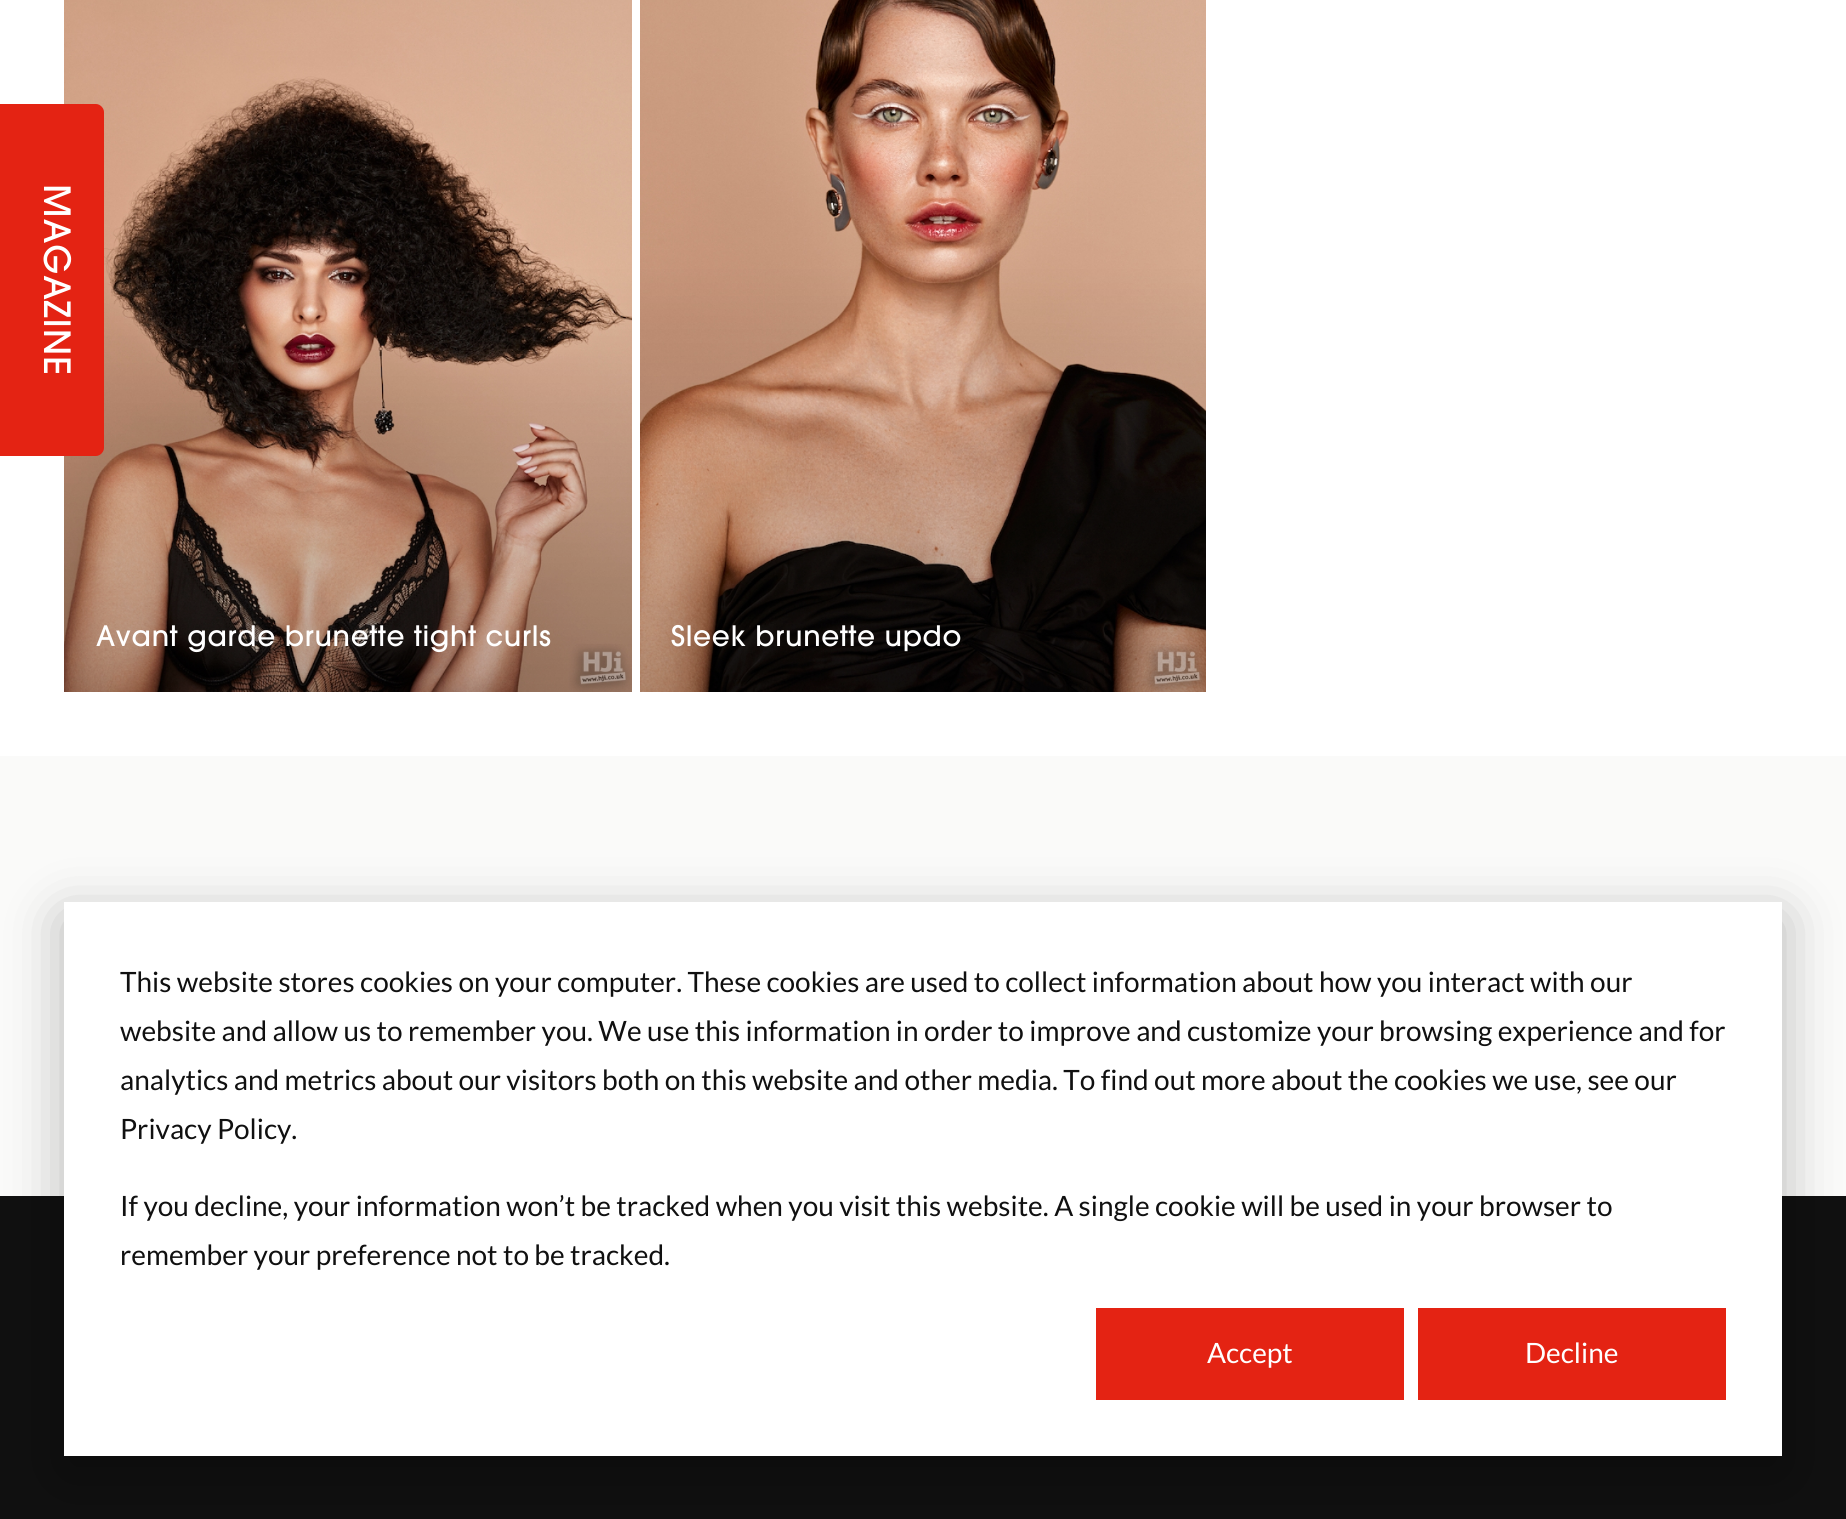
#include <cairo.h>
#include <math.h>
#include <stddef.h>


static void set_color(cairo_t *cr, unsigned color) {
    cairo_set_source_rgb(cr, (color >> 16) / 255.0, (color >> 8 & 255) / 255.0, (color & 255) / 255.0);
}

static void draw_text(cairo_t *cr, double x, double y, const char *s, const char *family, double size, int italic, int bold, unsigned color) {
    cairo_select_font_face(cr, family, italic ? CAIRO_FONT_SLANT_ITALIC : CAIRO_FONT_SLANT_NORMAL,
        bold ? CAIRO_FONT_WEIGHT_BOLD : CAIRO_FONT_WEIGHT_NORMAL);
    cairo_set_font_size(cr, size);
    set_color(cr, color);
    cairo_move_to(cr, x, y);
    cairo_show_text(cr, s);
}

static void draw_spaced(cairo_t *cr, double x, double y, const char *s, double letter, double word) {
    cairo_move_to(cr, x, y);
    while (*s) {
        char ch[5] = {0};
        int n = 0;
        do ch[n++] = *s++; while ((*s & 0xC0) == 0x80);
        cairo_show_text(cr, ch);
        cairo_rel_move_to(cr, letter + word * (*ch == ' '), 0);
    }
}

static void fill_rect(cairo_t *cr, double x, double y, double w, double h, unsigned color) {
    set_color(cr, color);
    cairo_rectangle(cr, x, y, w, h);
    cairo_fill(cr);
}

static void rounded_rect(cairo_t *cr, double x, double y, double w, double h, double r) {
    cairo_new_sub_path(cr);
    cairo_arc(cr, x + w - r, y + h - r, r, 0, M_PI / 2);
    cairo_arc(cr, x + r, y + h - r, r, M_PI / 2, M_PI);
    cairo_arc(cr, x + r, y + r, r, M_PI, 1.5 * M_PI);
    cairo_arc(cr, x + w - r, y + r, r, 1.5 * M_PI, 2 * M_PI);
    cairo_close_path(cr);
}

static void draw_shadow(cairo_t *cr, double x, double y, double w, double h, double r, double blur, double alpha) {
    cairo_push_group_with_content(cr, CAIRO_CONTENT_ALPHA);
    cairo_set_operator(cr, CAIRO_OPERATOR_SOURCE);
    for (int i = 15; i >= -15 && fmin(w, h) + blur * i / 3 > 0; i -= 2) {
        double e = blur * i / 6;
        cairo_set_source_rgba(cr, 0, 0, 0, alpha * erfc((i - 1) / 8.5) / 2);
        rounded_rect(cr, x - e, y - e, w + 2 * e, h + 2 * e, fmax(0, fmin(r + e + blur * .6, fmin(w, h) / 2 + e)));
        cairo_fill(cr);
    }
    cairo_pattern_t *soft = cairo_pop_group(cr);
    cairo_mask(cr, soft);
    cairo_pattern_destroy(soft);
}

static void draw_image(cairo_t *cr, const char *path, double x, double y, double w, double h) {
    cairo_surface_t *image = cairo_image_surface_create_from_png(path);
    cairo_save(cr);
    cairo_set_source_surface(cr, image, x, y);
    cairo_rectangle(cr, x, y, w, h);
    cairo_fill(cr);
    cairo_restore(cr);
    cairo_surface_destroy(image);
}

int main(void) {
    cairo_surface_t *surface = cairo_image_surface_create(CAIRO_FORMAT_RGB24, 1846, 1519);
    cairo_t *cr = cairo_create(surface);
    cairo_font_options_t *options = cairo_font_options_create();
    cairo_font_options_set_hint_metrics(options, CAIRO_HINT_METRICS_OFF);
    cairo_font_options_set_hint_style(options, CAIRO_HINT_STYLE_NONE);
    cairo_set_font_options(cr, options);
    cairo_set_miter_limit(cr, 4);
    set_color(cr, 0xFFFFFF);
    cairo_paint(cr);
    draw_image(cr, "assets/img1.png", 64, 0, 568, 692);
    set_color(cr, 0xE42313);
    cairo_new_path(cr);
    cairo_move_to(cr, 104, 112);
    cairo_line_to(cr, 104, 448);
    cairo_curve_to(cr, 104, 452, 100, 456, 96, 456);
    cairo_line_to(cr, 0, 456);
    cairo_line_to(cr, 0, 104);
    cairo_line_to(cr, 96, 104);
    cairo_curve_to(cr, 100, 104, 104, 108, 104, 112);
    cairo_close_path(cr);
    cairo_fill(cr);
    cairo_select_font_face(cr, "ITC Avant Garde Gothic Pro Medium", CAIRO_FONT_SLANT_NORMAL, CAIRO_FONT_WEIGHT_NORMAL);
    cairo_set_font_size(cr, 36);
    set_color(cr, 0xFFFFFF);
    cairo_save(cr);
    cairo_translate(cr, 44, 184);
    cairo_rotate(cr, 90 * M_PI / 180);
    draw_spaced(cr, 0, 0, "MAGAZINE", 1, 0);
    cairo_restore(cr);
    cairo_set_font_size(cr, 28);
    draw_spaced(cr, 96, 646, "Avant garde brunette tight curls", 0.7, 0);
    draw_image(cr, "assets/img2.png", 640, 0, 566, 692);
    draw_spaced(cr, 671, 646, "Sleek brunette updo", 0.7, 0);
    fill_rect(cr, 0, 756, 1846, 440, 0xFAFAF9);
    fill_rect(cr, 0, 1196, 1846, 323, 0x101010);
    set_color(cr, 0x000000);
    draw_shadow(cr, 64, 918, 1718, 554, 0, 28, 0.28);
    fill_rect(cr, 64, 902, 1718, 554, 0xFFFFFF);
    draw_text(cr, 120, 992, "This website stores cookies on your computer. These cookies are used to collect information about how you interact with our", "Lato", 28, 0, 0, 0x101010);
    draw_text(cr, 120, 1041, "website and allow us to remember you. We use this information in order to improve and customize your browsing experience and for", "Lato", 28, 0, 0, 0x101010);
    draw_text(cr, 120, 1090, "analytics and metrics about our visitors both on this website and other media. To find out more about the cookies we use, see our", "Lato", 28, 0, 0, 0x101010);
    draw_text(cr, 120, 1139, "Privacy Policy.", "Lato", 28, 0, 0, 0x101010);
    draw_text(cr, 120, 1216, "If you decline, your information won’t be tracked when you visit this website. A single cookie will be used in your browser to", "Lato", 28, 0, 0, 0x101010);
    draw_text(cr, 120, 1265, "remember your preference not to be tracked.", "Lato", 28, 0, 0, 0x101010);
    fill_rect(cr, 1096, 1308, 308, 92, 0xE42313);
    draw_text(cr, 1207, 1363, "Accept", "Lato", 28, 0, 0, 0xFFFFFF);
    fill_rect(cr, 1418, 1308, 308, 92, 0xE42313);
    draw_text(cr, 1525, 1363, "Decline", "Lato", 28, 0, 0, 0xFFFFFF);
    cairo_surface_write_to_png(surface, "output.png");
    cairo_font_options_destroy(options);
    cairo_destroy(cr);
    cairo_surface_destroy(surface);
    return 0;
}
